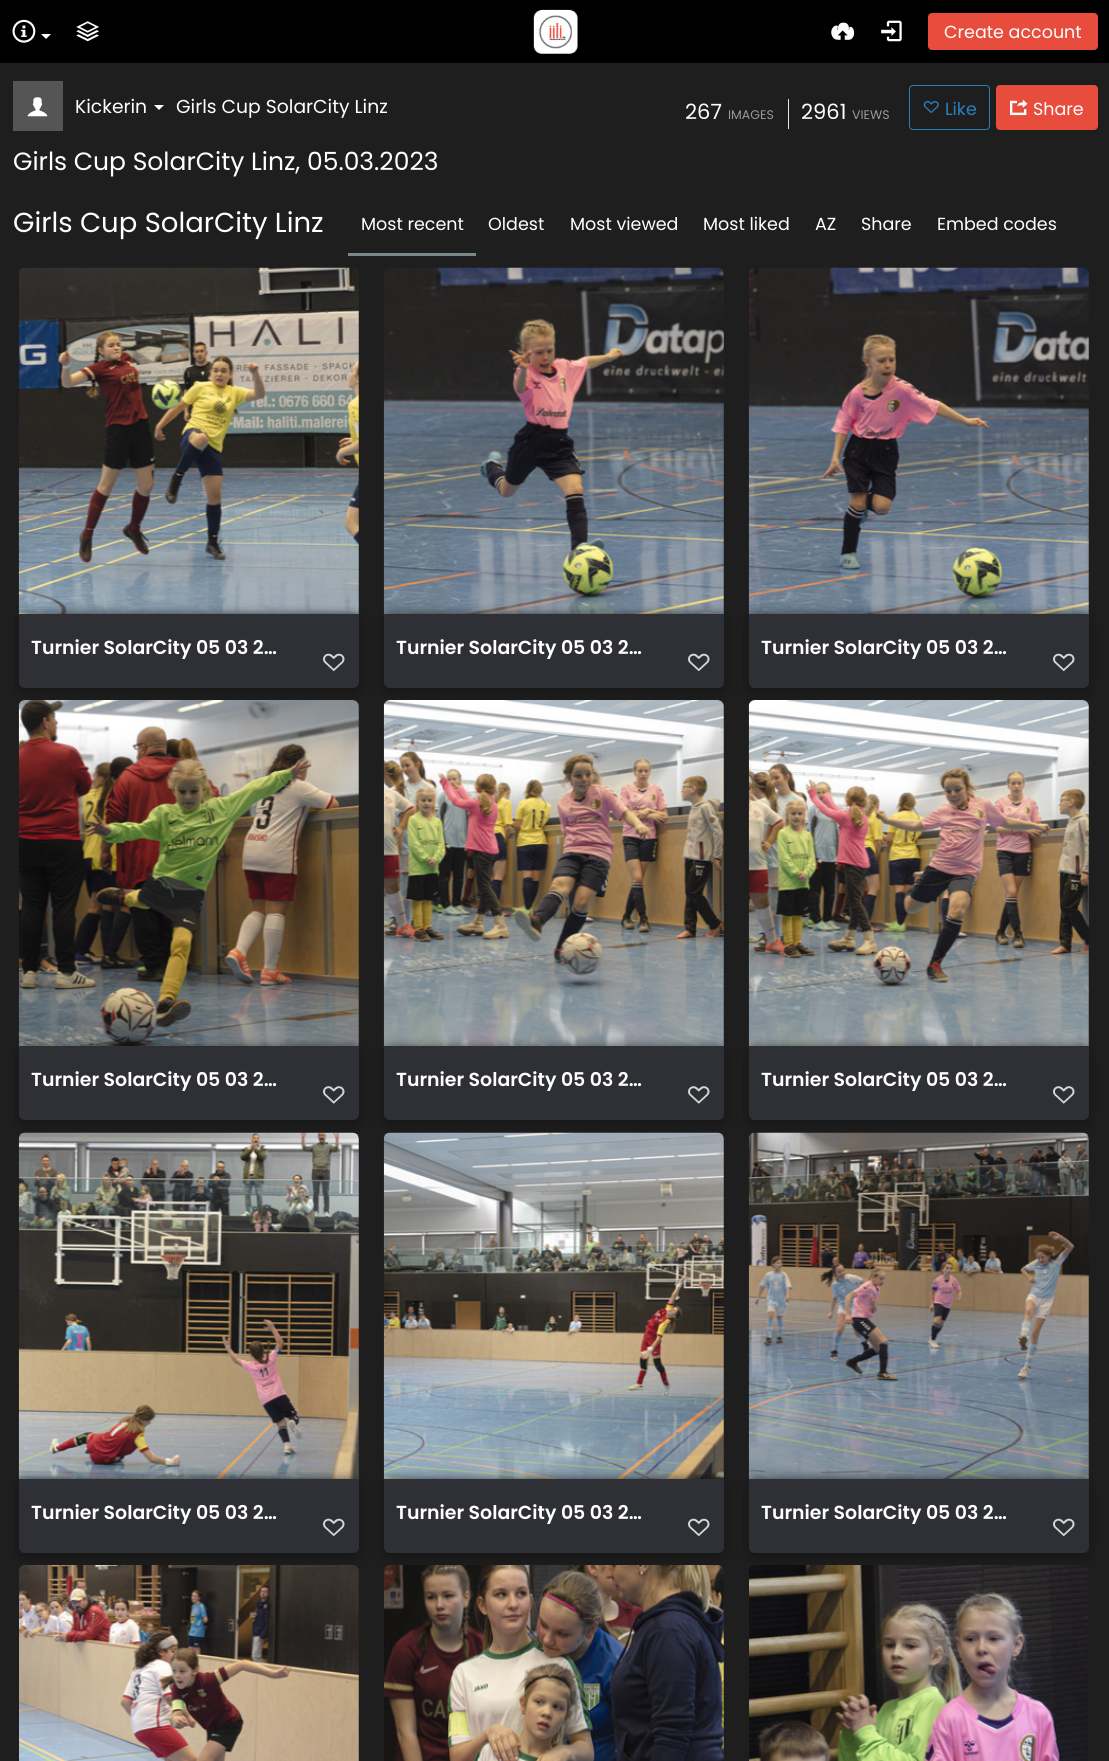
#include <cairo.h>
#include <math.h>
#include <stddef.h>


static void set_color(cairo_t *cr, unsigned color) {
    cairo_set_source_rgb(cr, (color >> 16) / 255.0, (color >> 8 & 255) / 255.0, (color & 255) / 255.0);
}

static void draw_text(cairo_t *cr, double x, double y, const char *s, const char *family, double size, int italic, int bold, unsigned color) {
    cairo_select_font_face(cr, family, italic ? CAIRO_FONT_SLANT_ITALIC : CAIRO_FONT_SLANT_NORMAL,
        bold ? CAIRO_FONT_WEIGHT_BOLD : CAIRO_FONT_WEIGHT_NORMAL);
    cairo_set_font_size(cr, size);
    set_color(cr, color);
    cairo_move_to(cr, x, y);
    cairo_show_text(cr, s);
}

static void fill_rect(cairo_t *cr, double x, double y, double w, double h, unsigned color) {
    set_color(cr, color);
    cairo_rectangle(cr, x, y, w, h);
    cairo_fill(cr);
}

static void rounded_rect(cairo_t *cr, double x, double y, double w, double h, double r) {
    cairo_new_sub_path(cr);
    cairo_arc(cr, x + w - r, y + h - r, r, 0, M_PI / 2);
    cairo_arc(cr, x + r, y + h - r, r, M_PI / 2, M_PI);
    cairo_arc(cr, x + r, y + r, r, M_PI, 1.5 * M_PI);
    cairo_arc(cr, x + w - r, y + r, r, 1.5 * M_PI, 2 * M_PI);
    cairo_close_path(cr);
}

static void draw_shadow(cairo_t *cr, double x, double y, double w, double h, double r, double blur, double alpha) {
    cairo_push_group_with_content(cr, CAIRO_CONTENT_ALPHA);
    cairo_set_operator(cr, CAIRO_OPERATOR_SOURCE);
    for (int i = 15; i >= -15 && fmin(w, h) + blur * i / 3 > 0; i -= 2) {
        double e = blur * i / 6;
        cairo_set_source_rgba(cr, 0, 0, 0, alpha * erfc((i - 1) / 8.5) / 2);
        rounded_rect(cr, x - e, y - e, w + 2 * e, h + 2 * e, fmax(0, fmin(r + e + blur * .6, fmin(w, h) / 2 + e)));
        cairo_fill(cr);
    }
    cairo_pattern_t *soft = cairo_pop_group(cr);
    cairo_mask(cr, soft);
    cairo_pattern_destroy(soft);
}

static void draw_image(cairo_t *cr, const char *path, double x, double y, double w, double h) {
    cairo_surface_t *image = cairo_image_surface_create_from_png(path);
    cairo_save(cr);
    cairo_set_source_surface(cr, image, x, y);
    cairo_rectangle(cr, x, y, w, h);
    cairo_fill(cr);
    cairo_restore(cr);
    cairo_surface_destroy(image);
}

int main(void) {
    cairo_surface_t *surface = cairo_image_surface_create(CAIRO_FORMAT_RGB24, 1109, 1761);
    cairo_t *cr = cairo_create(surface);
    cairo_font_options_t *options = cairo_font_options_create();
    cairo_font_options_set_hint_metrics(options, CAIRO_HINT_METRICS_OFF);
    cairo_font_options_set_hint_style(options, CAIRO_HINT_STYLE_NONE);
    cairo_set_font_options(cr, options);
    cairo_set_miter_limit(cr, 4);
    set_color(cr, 0x1E1E1E);
    cairo_paint(cr);
    fill_rect(cr, 0, 0, 1109, 63, 0x000000);
    draw_image(cr, "assets/img1.png", 12, 19, 24, 24);
    set_color(cr, 0xFFFFFF);
    cairo_new_path(cr);
    cairo_move_to(cr, 41, 34);
    cairo_line_to(cr, 51, 34);
    cairo_line_to(cr, 46, 39);
    cairo_close_path(cr);
    cairo_fill(cr);
    draw_image(cr, "assets/img2.png", 76, 21, 23, 21);
    draw_image(cr, "assets/img3.png", 533, 9, 45, 45);
    draw_image(cr, "assets/img4.png", 831, 22, 24, 18);
    draw_image(cr, "assets/img5.png", 881, 20, 21, 22);
    set_color(cr, 0xE84C3D);
    rounded_rect(cr, 928, 13, 170, 37, 4);
    cairo_fill(cr);
    draw_text(cr, 944, 38, "Create account", "Poppins", 17.5, 0, 0, 0xFFFFFF);
    fill_rect(cr, 13, 81, 50, 50, 0x555555);
    draw_image(cr, "assets/img6.png", 27, 97, 21, 20);
    draw_text(cr, 75, 113, "Kickerin", "Poppins", 18.75, 0, 0, 0xFFFFFF);
    cairo_new_path(cr);
    cairo_move_to(cr, 154, 105);
    cairo_line_to(cr, 164, 105);
    cairo_line_to(cr, 159, 110);
    cairo_close_path(cr);
    cairo_fill(cr);
    draw_text(cr, 176, 113, "Girls Cup SolarCity Linz", "Poppins", 18.75, 0, 0, 0xFFFFFF);
    draw_text(cr, 685, 119, "267", "Poppins", 21, 0, 0, 0xFFFFFF);
    draw_text(cr, 728, 119, "IMAGES", "Poppins", 12.5, 0, 0, 0x999999);
    fill_rect(cr, 788, 99, 1, 30, 0xE5E5E5);
    draw_text(cr, 801, 119, "2961", "Poppins", 21, 0, 0, 0xFFFFFF);
    draw_text(cr, 852, 119, "VIEWS", "Poppins", 12.5, 0, 0, 0x999999);
    rounded_rect(cr, 909.5, 85.5, 80, 44, 3.5);
    set_color(cr, 0x2A80B9);
    cairo_set_line_width(cr, 1);
    cairo_stroke(cr);
    draw_image(cr, "assets/img7.png", 923, 101, 16, 13);
    draw_text(cr, 945, 115, "Like", "Poppins", 17.5, 0, 0, 0x2A80B9);
    set_color(cr, 0xE84C3D);
    rounded_rect(cr, 996, 85, 102, 45, 4);
    cairo_fill(cr);
    draw_image(cr, "assets/img8.png", 1010, 99, 18, 17);
    draw_text(cr, 1033, 115, "Share", "Poppins", 17.5, 0, 0, 0xFFFFFF);
    draw_text(cr, 13, 170, "Girls Cup SolarCity Linz, 05.03.2023", "Poppins", 25, 0, 0, 0xFFFFFF);
    fill_rect(cr, 13, 254, 1085, 1, 0x212121);
    draw_text(cr, 13, 232, "Girls Cup SolarCity Linz", "Poppins", 27.5, 0, 0, 0xFFFFFF);
    fill_rect(cr, 348, 253, 128, 3, 0x7A888C);
    draw_text(cr, 361, 230, "Most recent", "Poppins", 17.5, 0, 0, 0xFFFFFF);
    draw_text(cr, 488, 230, "Oldest", "Poppins", 17.5, 0, 0, 0xFFFFFF);
    draw_text(cr, 570, 230, "Most viewed", "Poppins", 17.5, 0, 0, 0xFFFFFF);
    draw_text(cr, 703, 230, "Most liked", "Poppins", 17.5, 0, 0, 0xFFFFFF);
    draw_text(cr, 815, 230, "AZ", "Poppins", 17.5, 0, 0, 0xFFFFFF);
    draw_text(cr, 861, 230, "Share", "Poppins", 17.5, 0, 0, 0xFFFFFF);
    draw_text(cr, 937, 230, "Embed codes", "Poppins", 17.5, 0, 0, 0xFFFFFF);
    set_color(cr, 0x212121);
    rounded_rect(cr, 19, 268, 340, 352, 6);
    cairo_fill(cr);
    draw_image(cr, "assets/img9.png", 18, 267, 341, 348);
    cairo_save(cr);
    cairo_rectangle(cr, 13, 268, 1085, 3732);
    cairo_clip(cr);
    set_color(cr, 0x151515);
    draw_shadow(cr, 18, 616, 342, 77, 8, 6, 1);
    cairo_restore(cr);
    set_color(cr, 0x2E3035);
    cairo_new_path(cr);
    cairo_move_to(cr, 19, 614);
    cairo_line_to(cr, 359, 614);
    cairo_line_to(cr, 359, 682);
    cairo_curve_to(cr, 359, 685.5, 356.5, 688, 353, 688);
    cairo_line_to(cr, 25, 688);
    cairo_curve_to(cr, 21.5, 688, 19, 685.5, 19, 682);
    cairo_close_path(cr);
    cairo_fill(cr);
    draw_text(cr, 31, 654, "Turnier SolarCity 05 03 2…", "Poppins SemiBold", 18.9, 0, 0, 0xFFFFFF);
    draw_image(cr, "assets/img10.png", 323, 653, 22, 19);
    set_color(cr, 0x212121);
    rounded_rect(cr, 384, 268, 340, 352, 6);
    cairo_fill(cr);
    draw_image(cr, "assets/img11.png", 383, 267, 341, 348);
    set_color(cr, 0x151515);
    draw_shadow(cr, 383, 616, 342, 77, 8, 6, 1);
    set_color(cr, 0x2E3035);
    cairo_new_path(cr);
    cairo_move_to(cr, 384, 614);
    cairo_line_to(cr, 724, 614);
    cairo_line_to(cr, 724, 682);
    cairo_curve_to(cr, 724, 685.5, 721.5, 688, 718, 688);
    cairo_line_to(cr, 390, 688);
    cairo_curve_to(cr, 386.5, 688, 384, 685.5, 384, 682);
    cairo_close_path(cr);
    cairo_fill(cr);
    draw_text(cr, 396, 654, "Turnier SolarCity 05 03 2…", "Poppins SemiBold", 18.9, 0, 0, 0xFFFFFF);
    draw_image(cr, "assets/img10.png", 688, 653, 22, 19);
    set_color(cr, 0x212121);
    rounded_rect(cr, 749, 268, 340, 352, 6);
    cairo_fill(cr);
    draw_image(cr, "assets/img12.png", 748, 267, 341, 348);
    cairo_save(cr);
    cairo_rectangle(cr, 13, 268, 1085, 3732);
    cairo_clip(cr);
    set_color(cr, 0x151515);
    draw_shadow(cr, 748, 616, 342, 77, 8, 6, 1);
    cairo_restore(cr);
    set_color(cr, 0x2E3035);
    cairo_new_path(cr);
    cairo_move_to(cr, 749, 614);
    cairo_line_to(cr, 1089, 614);
    cairo_line_to(cr, 1089, 682);
    cairo_curve_to(cr, 1089, 685.5, 1086.5, 688, 1083, 688);
    cairo_line_to(cr, 755, 688);
    cairo_curve_to(cr, 751.5, 688, 749, 685.5, 749, 682);
    cairo_close_path(cr);
    cairo_fill(cr);
    draw_text(cr, 761, 654, "Turnier SolarCity 05 03 2…", "Poppins SemiBold", 18.9, 0, 0, 0xFFFFFF);
    draw_image(cr, "assets/img10.png", 1053, 653, 22, 19);
    set_color(cr, 0x212121);
    rounded_rect(cr, 19, 700, 340, 353, 6);
    cairo_fill(cr);
    draw_image(cr, "assets/img13.png", 18, 700, 341, 347);
    cairo_save(cr);
    cairo_rectangle(cr, 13, 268, 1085, 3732);
    cairo_clip(cr);
    set_color(cr, 0x151515);
    draw_shadow(cr, 18, 1049, 342, 76, 8, 6, 1);
    cairo_restore(cr);
    set_color(cr, 0x2E3035);
    cairo_new_path(cr);
    cairo_move_to(cr, 19, 1046);
    cairo_line_to(cr, 359, 1046);
    cairo_line_to(cr, 359, 1114);
    cairo_curve_to(cr, 359, 1117.5, 356.5, 1120, 353, 1120);
    cairo_line_to(cr, 25, 1120);
    cairo_curve_to(cr, 21.5, 1120, 19, 1117.5, 19, 1114);
    cairo_close_path(cr);
    cairo_fill(cr);
    draw_text(cr, 31, 1086, "Turnier SolarCity 05 03 2…", "Poppins SemiBold", 18.9, 0, 0, 0xFFFFFF);
    draw_image(cr, "assets/img14.png", 323, 1086, 22, 18);
    set_color(cr, 0x212121);
    rounded_rect(cr, 384, 700, 340, 353, 6);
    cairo_fill(cr);
    draw_image(cr, "assets/img15.png", 383, 700, 341, 347);
    set_color(cr, 0x151515);
    draw_shadow(cr, 383, 1049, 342, 76, 8, 6, 1);
    set_color(cr, 0x2E3035);
    cairo_new_path(cr);
    cairo_move_to(cr, 384, 1046);
    cairo_line_to(cr, 724, 1046);
    cairo_line_to(cr, 724, 1114);
    cairo_curve_to(cr, 724, 1117.5, 721.5, 1120, 718, 1120);
    cairo_line_to(cr, 390, 1120);
    cairo_curve_to(cr, 386.5, 1120, 384, 1117.5, 384, 1114);
    cairo_close_path(cr);
    cairo_fill(cr);
    draw_text(cr, 396, 1086, "Turnier SolarCity 05 03 2…", "Poppins SemiBold", 18.9, 0, 0, 0xFFFFFF);
    draw_image(cr, "assets/img14.png", 688, 1086, 22, 18);
    set_color(cr, 0x212121);
    rounded_rect(cr, 749, 700, 340, 353, 6);
    cairo_fill(cr);
    draw_image(cr, "assets/img16.png", 748, 700, 341, 347);
    cairo_save(cr);
    cairo_rectangle(cr, 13, 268, 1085, 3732);
    cairo_clip(cr);
    set_color(cr, 0x151515);
    draw_shadow(cr, 748, 1049, 342, 76, 8, 6, 1);
    cairo_restore(cr);
    set_color(cr, 0x2E3035);
    cairo_new_path(cr);
    cairo_move_to(cr, 749, 1046);
    cairo_line_to(cr, 1089, 1046);
    cairo_line_to(cr, 1089, 1114);
    cairo_curve_to(cr, 1089, 1117.5, 1086.5, 1120, 1083, 1120);
    cairo_line_to(cr, 755, 1120);
    cairo_curve_to(cr, 751.5, 1120, 749, 1117.5, 749, 1114);
    cairo_close_path(cr);
    cairo_fill(cr);
    draw_text(cr, 761, 1086, "Turnier SolarCity 05 03 2…", "Poppins SemiBold", 18.9, 0, 0, 0xFFFFFF);
    draw_image(cr, "assets/img14.png", 1053, 1086, 22, 18);
    set_color(cr, 0x212121);
    rounded_rect(cr, 19, 1133, 340, 352, 6);
    cairo_fill(cr);
    draw_image(cr, "assets/img17.png", 18, 1132, 341, 348);
    cairo_save(cr);
    cairo_rectangle(cr, 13, 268, 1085, 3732);
    cairo_clip(cr);
    set_color(cr, 0x151515);
    draw_shadow(cr, 18, 1481, 342, 77, 8, 6, 1);
    cairo_restore(cr);
    set_color(cr, 0x2E3035);
    cairo_new_path(cr);
    cairo_move_to(cr, 19, 1479);
    cairo_line_to(cr, 359, 1479);
    cairo_line_to(cr, 359, 1547);
    cairo_curve_to(cr, 359, 1550.5, 356.5, 1553, 353, 1553);
    cairo_line_to(cr, 25, 1553);
    cairo_curve_to(cr, 21.5, 1553, 19, 1550.5, 19, 1547);
    cairo_close_path(cr);
    cairo_fill(cr);
    draw_text(cr, 31, 1519, "Turnier SolarCity 05 03 2…", "Poppins SemiBold", 18.9, 0, 0, 0xFFFFFF);
    draw_image(cr, "assets/img10.png", 323, 1518, 22, 19);
    set_color(cr, 0x212121);
    rounded_rect(cr, 384, 1133, 340, 352, 6);
    cairo_fill(cr);
    draw_image(cr, "assets/img18.png", 383, 1132, 341, 348);
    set_color(cr, 0x151515);
    draw_shadow(cr, 383, 1481, 342, 77, 8, 6, 1);
    set_color(cr, 0x2E3035);
    cairo_new_path(cr);
    cairo_move_to(cr, 384, 1479);
    cairo_line_to(cr, 724, 1479);
    cairo_line_to(cr, 724, 1547);
    cairo_curve_to(cr, 724, 1550.5, 721.5, 1553, 718, 1553);
    cairo_line_to(cr, 390, 1553);
    cairo_curve_to(cr, 386.5, 1553, 384, 1550.5, 384, 1547);
    cairo_close_path(cr);
    cairo_fill(cr);
    draw_text(cr, 396, 1519, "Turnier SolarCity 05 03 2…", "Poppins SemiBold", 18.9, 0, 0, 0xFFFFFF);
    draw_image(cr, "assets/img10.png", 688, 1518, 22, 19);
    set_color(cr, 0x212121);
    rounded_rect(cr, 749, 1133, 340, 352, 6);
    cairo_fill(cr);
    draw_image(cr, "assets/img19.png", 748, 1132, 341, 348);
    cairo_save(cr);
    cairo_rectangle(cr, 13, 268, 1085, 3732);
    cairo_clip(cr);
    set_color(cr, 0x151515);
    draw_shadow(cr, 748, 1481, 342, 77, 8, 6, 1);
    cairo_restore(cr);
    set_color(cr, 0x2E3035);
    cairo_new_path(cr);
    cairo_move_to(cr, 749, 1479);
    cairo_line_to(cr, 1089, 1479);
    cairo_line_to(cr, 1089, 1547);
    cairo_curve_to(cr, 1089, 1550.5, 1086.5, 1553, 1083, 1553);
    cairo_line_to(cr, 755, 1553);
    cairo_curve_to(cr, 751.5, 1553, 749, 1550.5, 749, 1547);
    cairo_close_path(cr);
    cairo_fill(cr);
    draw_text(cr, 761, 1519, "Turnier SolarCity 05 03 2…", "Poppins SemiBold", 18.9, 0, 0, 0xFFFFFF);
    draw_image(cr, "assets/img10.png", 1053, 1518, 22, 19);
    set_color(cr, 0x212121);
    rounded_rect(cr, 19, 1565, 340, 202, 6);
    cairo_fill(cr);
    draw_image(cr, "assets/img20.png", 19, 1565, 340, 196);
    rounded_rect(cr, 384, 1565, 340, 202, 6);
    cairo_fill(cr);
    draw_image(cr, "assets/img21.png", 384, 1565, 340, 196);
    rounded_rect(cr, 749, 1565, 340, 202, 6);
    cairo_fill(cr);
    draw_image(cr, "assets/img22.png", 749, 1565, 340, 196);
    cairo_surface_write_to_png(surface, "output.png");
    cairo_font_options_destroy(options);
    cairo_destroy(cr);
    cairo_surface_destroy(surface);
    return 0;
}
